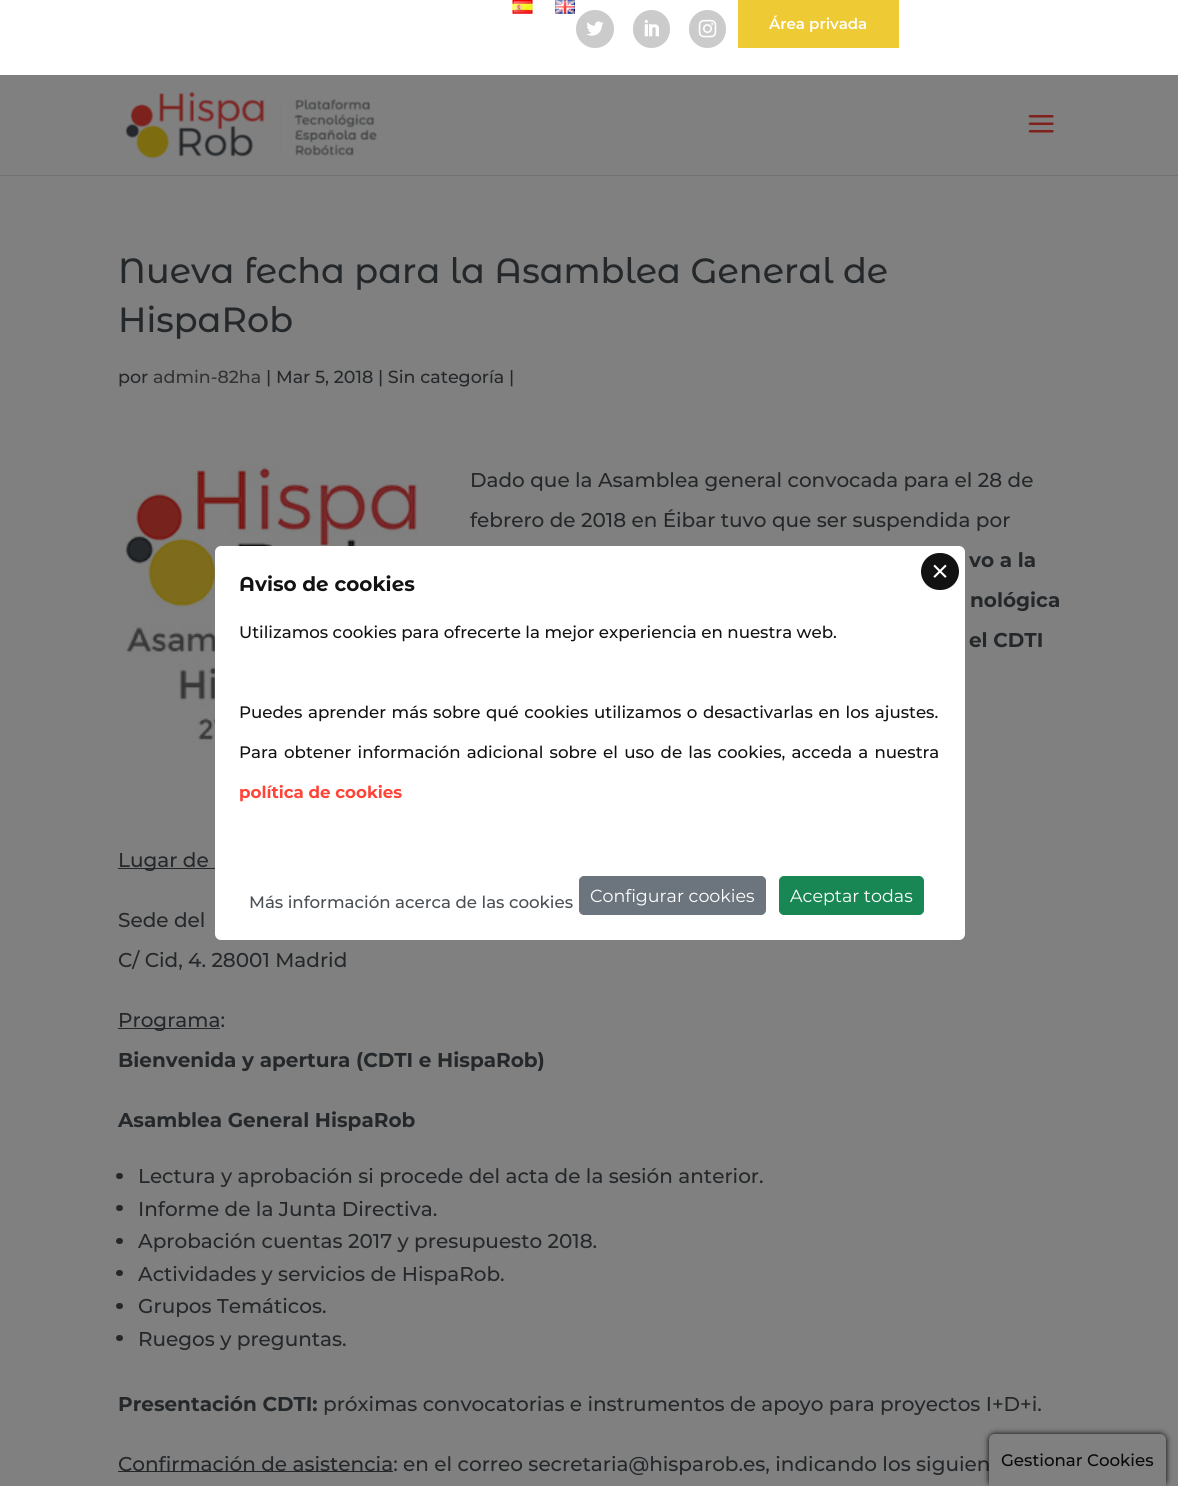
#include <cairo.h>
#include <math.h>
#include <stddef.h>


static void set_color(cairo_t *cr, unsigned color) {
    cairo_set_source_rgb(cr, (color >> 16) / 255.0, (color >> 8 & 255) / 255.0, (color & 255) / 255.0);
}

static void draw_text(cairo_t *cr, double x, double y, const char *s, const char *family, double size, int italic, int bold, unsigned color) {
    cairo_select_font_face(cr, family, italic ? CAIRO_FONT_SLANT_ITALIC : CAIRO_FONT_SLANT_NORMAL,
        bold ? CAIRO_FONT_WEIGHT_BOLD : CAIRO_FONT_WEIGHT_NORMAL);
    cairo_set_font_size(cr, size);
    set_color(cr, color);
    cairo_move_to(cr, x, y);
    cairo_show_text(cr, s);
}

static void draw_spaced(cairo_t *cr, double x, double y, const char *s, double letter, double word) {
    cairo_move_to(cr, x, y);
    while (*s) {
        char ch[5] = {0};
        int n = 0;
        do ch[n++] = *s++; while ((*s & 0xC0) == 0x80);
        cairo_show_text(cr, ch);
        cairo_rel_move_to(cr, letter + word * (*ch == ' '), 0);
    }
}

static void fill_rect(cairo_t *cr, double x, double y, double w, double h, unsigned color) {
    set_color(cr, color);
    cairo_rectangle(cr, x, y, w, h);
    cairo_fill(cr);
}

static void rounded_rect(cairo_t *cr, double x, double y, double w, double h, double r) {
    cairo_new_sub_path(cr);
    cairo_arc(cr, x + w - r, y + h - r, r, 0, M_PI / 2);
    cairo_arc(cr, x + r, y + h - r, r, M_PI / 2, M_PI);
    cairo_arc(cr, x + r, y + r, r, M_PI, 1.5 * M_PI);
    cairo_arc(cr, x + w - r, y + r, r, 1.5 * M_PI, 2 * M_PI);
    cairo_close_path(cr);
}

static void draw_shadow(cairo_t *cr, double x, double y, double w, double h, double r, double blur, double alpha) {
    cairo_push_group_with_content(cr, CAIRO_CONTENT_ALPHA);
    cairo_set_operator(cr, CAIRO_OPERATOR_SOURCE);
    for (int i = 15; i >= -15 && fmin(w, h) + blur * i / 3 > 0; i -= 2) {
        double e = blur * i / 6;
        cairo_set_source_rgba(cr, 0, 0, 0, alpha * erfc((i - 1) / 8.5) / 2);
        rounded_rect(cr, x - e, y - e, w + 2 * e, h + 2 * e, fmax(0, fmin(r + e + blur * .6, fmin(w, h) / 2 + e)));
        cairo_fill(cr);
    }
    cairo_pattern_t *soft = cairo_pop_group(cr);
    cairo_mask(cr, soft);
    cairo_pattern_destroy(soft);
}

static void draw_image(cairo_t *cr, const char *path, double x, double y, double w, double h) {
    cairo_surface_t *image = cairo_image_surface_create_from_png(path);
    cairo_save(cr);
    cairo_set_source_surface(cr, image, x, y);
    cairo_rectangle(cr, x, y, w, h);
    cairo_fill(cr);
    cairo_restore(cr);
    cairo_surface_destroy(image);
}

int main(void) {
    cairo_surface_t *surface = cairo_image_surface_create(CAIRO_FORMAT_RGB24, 1178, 1486);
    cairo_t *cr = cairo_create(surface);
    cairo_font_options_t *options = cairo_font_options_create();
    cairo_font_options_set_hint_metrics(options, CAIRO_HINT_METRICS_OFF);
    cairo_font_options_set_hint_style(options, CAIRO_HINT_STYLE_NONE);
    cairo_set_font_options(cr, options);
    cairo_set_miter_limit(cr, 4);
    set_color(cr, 0x808080);
    cairo_paint(cr);
    fill_rect(cr, 0, 0, 1178, 75, 0xFFFFFF);
    draw_image(cr, "assets/img1.png", 512, 0, 21, 14);
    draw_image(cr, "assets/img2.png", 555, 0, 20, 14);
    set_color(cr, 0xCBCBCB);
    cairo_arc(cr, 595, 29, 19, 0, 2 * M_PI);
    cairo_fill(cr);
    draw_image(cr, "assets/img3.png", 586, 21, 18, 15);
    rounded_rect(cr, 633, 10, 37, 38, 18.5);
    cairo_fill(cr);
    draw_image(cr, "assets/img4.png", 644, 19, 15, 18);
    rounded_rect(cr, 689, 10, 37, 38, 18.5);
    cairo_fill(cr);
    draw_image(cr, "assets/img5.png", 698, 19, 19, 19);
    fill_rect(cr, 738, 0, 161, 48, 0xEECA35);
    draw_text(cr, 769, 29, "Área privada", "Montserrat SemiBold", 15, 0, 0, 0xFFFFFF);
    set_color(cr, 0x737373);
    cairo_new_path(cr);
    cairo_move_to(cr, 0, 175);
    cairo_line_to(cr, 0, 176);
    cairo_line_to(cr, 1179, 176);
    cairo_line_to(cr, 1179, 76);
    cairo_line_to(cr, 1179, 175);
    cairo_close_path(cr);
    cairo_fill(cr);
    draw_image(cr, "assets/img6.png", 125, 92, 252, 66);
    draw_image(cr, "assets/img7.png", 1028, 115, 26, 18);
    draw_text(cr, 118, 283, "Nueva fecha para la Asamblea General de", "Montserrat Alternates Medium", 35, 0, 0, 0x25282A);
    draw_text(cr, 118, 332, "HispaRob", "Montserrat Alternates Medium", 35, 0, 0, 0x25282A);
    draw_text(cr, 118, 383, "por", "Montserrat Medium", 17.5, 0, 0, 0x25282A);
    draw_text(cr, 153, 383, "admin-82ha", "Montserrat Medium", 17.5, 0, 0, 0x333333);
    draw_text(cr, 266, 383, "| Mar 5, 2018 | Sin categoría |", "Montserrat Medium", 17.5, 0, 0, 0x25282A);
    draw_image(cr, "assets/img8.png", 125, 465, 293, 278);
    draw_text(cr, 470, 487, "Dado que la Asamblea general convocada para el 28 de", "Montserrat Medium", 20, 0, 0, 0x25282A);
    draw_text(cr, 470, 527, "febrero de 2018 en Éibar tuvo que ser suspendida por", "Montserrat Medium", 20, 0, 0, 0x25282A);
    draw_text(cr, 969, 567, "vo a la", "Montserrat", 20, 0, 1, 0x25282A);
    draw_text(cr, 970, 607, "nológica", "Montserrat", 20, 0, 1, 0x25282A);
    draw_text(cr, 969, 647, "el CDTI", "Montserrat", 20, 0, 1, 0x25282A);
    fill_rect(cr, 118, 868, 97, 1, 0x25282A);
    draw_text(cr, 118, 867, "Lugar de", "Montserrat Medium", 20, 0, 0, 0x25282A);
    draw_text(cr, 118, 927, "Sede del", "Montserrat Medium", 20, 0, 0, 0x25282A);
    draw_text(cr, 118, 967, "C/ Cid, 4. 28001 Madrid", "Montserrat Medium", 20, 0, 0, 0x25282A);
    fill_rect(cr, 118, 1028, 102, 1, 0x25282A);
    draw_text(cr, 118, 1027, "Programa:", "Montserrat Medium", 20, 0, 0, 0x25282A);
    draw_text(cr, 118, 1067, "Bienvenida y apertura (CDTI e HispaRob)", "Montserrat", 20, 0, 1, 0x25282A);
    draw_text(cr, 118, 1127, "Asamblea General HispaRob", "Montserrat", 20, 0, 1, 0x25282A);
    rounded_rect(cr, 116, 1173, 7, 6, 3);
    cairo_fill(cr);
    draw_text(cr, 138, 1183, "Lectura y aprobación si procede del acta de la sesión anterior.", "Montserrat Medium", 20, 0, 0, 0x25282A);
    rounded_rect(cr, 116, 1205, 7, 6, 3);
    cairo_fill(cr);
    draw_text(cr, 138, 1216, "Informe de la Junta Directiva.", "Montserrat Medium", 20, 0, 0, 0x25282A);
    rounded_rect(cr, 116, 1238, 7, 6, 3);
    cairo_fill(cr);
    draw_text(cr, 138, 1248, "Aprobación cuentas 2017 y presupuesto 2018.", "Montserrat Medium", 20, 0, 0, 0x25282A);
    rounded_rect(cr, 116, 1270, 7, 6, 3);
    cairo_fill(cr);
    draw_text(cr, 138, 1281, "Actividades y servicios de HispaRob.", "Montserrat Medium", 20, 0, 0, 0x25282A);
    rounded_rect(cr, 116, 1303, 7, 6, 3);
    cairo_fill(cr);
    draw_text(cr, 138, 1313, "Grupos Temáticos.", "Montserrat Medium", 20, 0, 0, 0x25282A);
    rounded_rect(cr, 116, 1335, 7, 6, 3);
    cairo_fill(cr);
    draw_text(cr, 138, 1346, "Ruegos y preguntas.", "Montserrat Medium", 20, 0, 0, 0x25282A);
    draw_text(cr, 118, 1411, "Presentación CDTI:", "Montserrat", 20, 0, 1, 0x25282A);
    draw_text(cr, 323, 1411, "próximas convocatorias e instrumentos de apoyo para proyectos I+D+i.", "Montserrat Medium", 20, 0, 0, 0x25282A);
    fill_rect(cr, 118, 1471, 275, 1, 0x25282A);
    draw_text(cr, 118, 1471, "Confirmación de asistencia: en el correo secretaria@hisparob.es, indicando los siguien", "Montserrat Medium", 20, 0, 0, 0x25282A);
    set_color(cr, 0xFFFFFF);
    rounded_rect(cr, 215, 546, 750, 394, 6);
    cairo_fill(cr);
    draw_text(cr, 239, 591, "Aviso de cookies", "Montserrat Alternates", 20, 0, 1, 0x121212);
    draw_text(cr, 239, 638, "Utilizamos cookies para ofrecerte la mejor experiencia en nuestra web.", "Montserrat Medium", 16.65, 0, 0, 0x121212);
    draw_spaced(cr, 239, 718, "Puedes aprender más sobre qué cookies utilizamos o desactivarlas en los ajustes.", 0, 1.1);
    draw_spaced(cr, 239, 758, "Para obtener información adicional sobre el uso de las cookies, acceda a nuestra", 0, 1.75);
    draw_text(cr, 239, 798, "política de cookies", "Montserrat", 16.65, 0, 1, 0xFF4438);
    set_color(cr, 0x121212);
    rounded_rect(cr, 921, 553, 38, 37, 18.5);
    cairo_fill(cr);
    draw_image(cr, "assets/img9.png", 933, 564, 14, 14);
    draw_text(cr, 249, 908, "Más información acerca de las cookies", "Montserrat Medium", 16.65, 0, 0, 0x4A4F54);
    set_color(cr, 0x6C757D);
    rounded_rect(cr, 579.5, 876.5, 186, 38, 4.5);
    cairo_fill_preserve(cr);
    cairo_set_line_width(cr, 1);
    cairo_stroke(cr);
    draw_text(cr, 590, 902, "Configurar cookies", "Montserrat", 17.5, 0, 0, 0xFFFFFF);
    set_color(cr, 0x198754);
    rounded_rect(cr, 779.5, 876.5, 144, 38, 4.5);
    cairo_fill_preserve(cr);
    cairo_stroke(cr);
    draw_text(cr, 790, 902, "Aceptar todas", "Montserrat", 17.5, 0, 0, 0xFFFFFF);
    set_color(cr, 0x000000);
    draw_shadow(cr, 989, 1434, 177, 52, 6, 3, 1);
    set_color(cr, 0x808080);
    cairo_new_path(cr);
    cairo_move_to(cr, 995, 1434);
    cairo_line_to(cr, 1160, 1434);
    cairo_curve_to(cr, 1163.5, 1434, 1166, 1436.5, 1166, 1440);
    cairo_line_to(cr, 1166, 1486);
    cairo_line_to(cr, 989, 1486);
    cairo_line_to(cr, 989, 1440);
    cairo_curve_to(cr, 989, 1436.5, 991.5, 1434, 995, 1434);
    cairo_close_path(cr);
    cairo_fill(cr);
    draw_text(cr, 1001, 1466, "Gestionar Cookies", "Montserrat Medium", 16.65, 0, 0, 0x090909);
    cairo_surface_write_to_png(surface, "output.png");
    cairo_font_options_destroy(options);
    cairo_destroy(cr);
    cairo_surface_destroy(surface);
    return 0;
}
